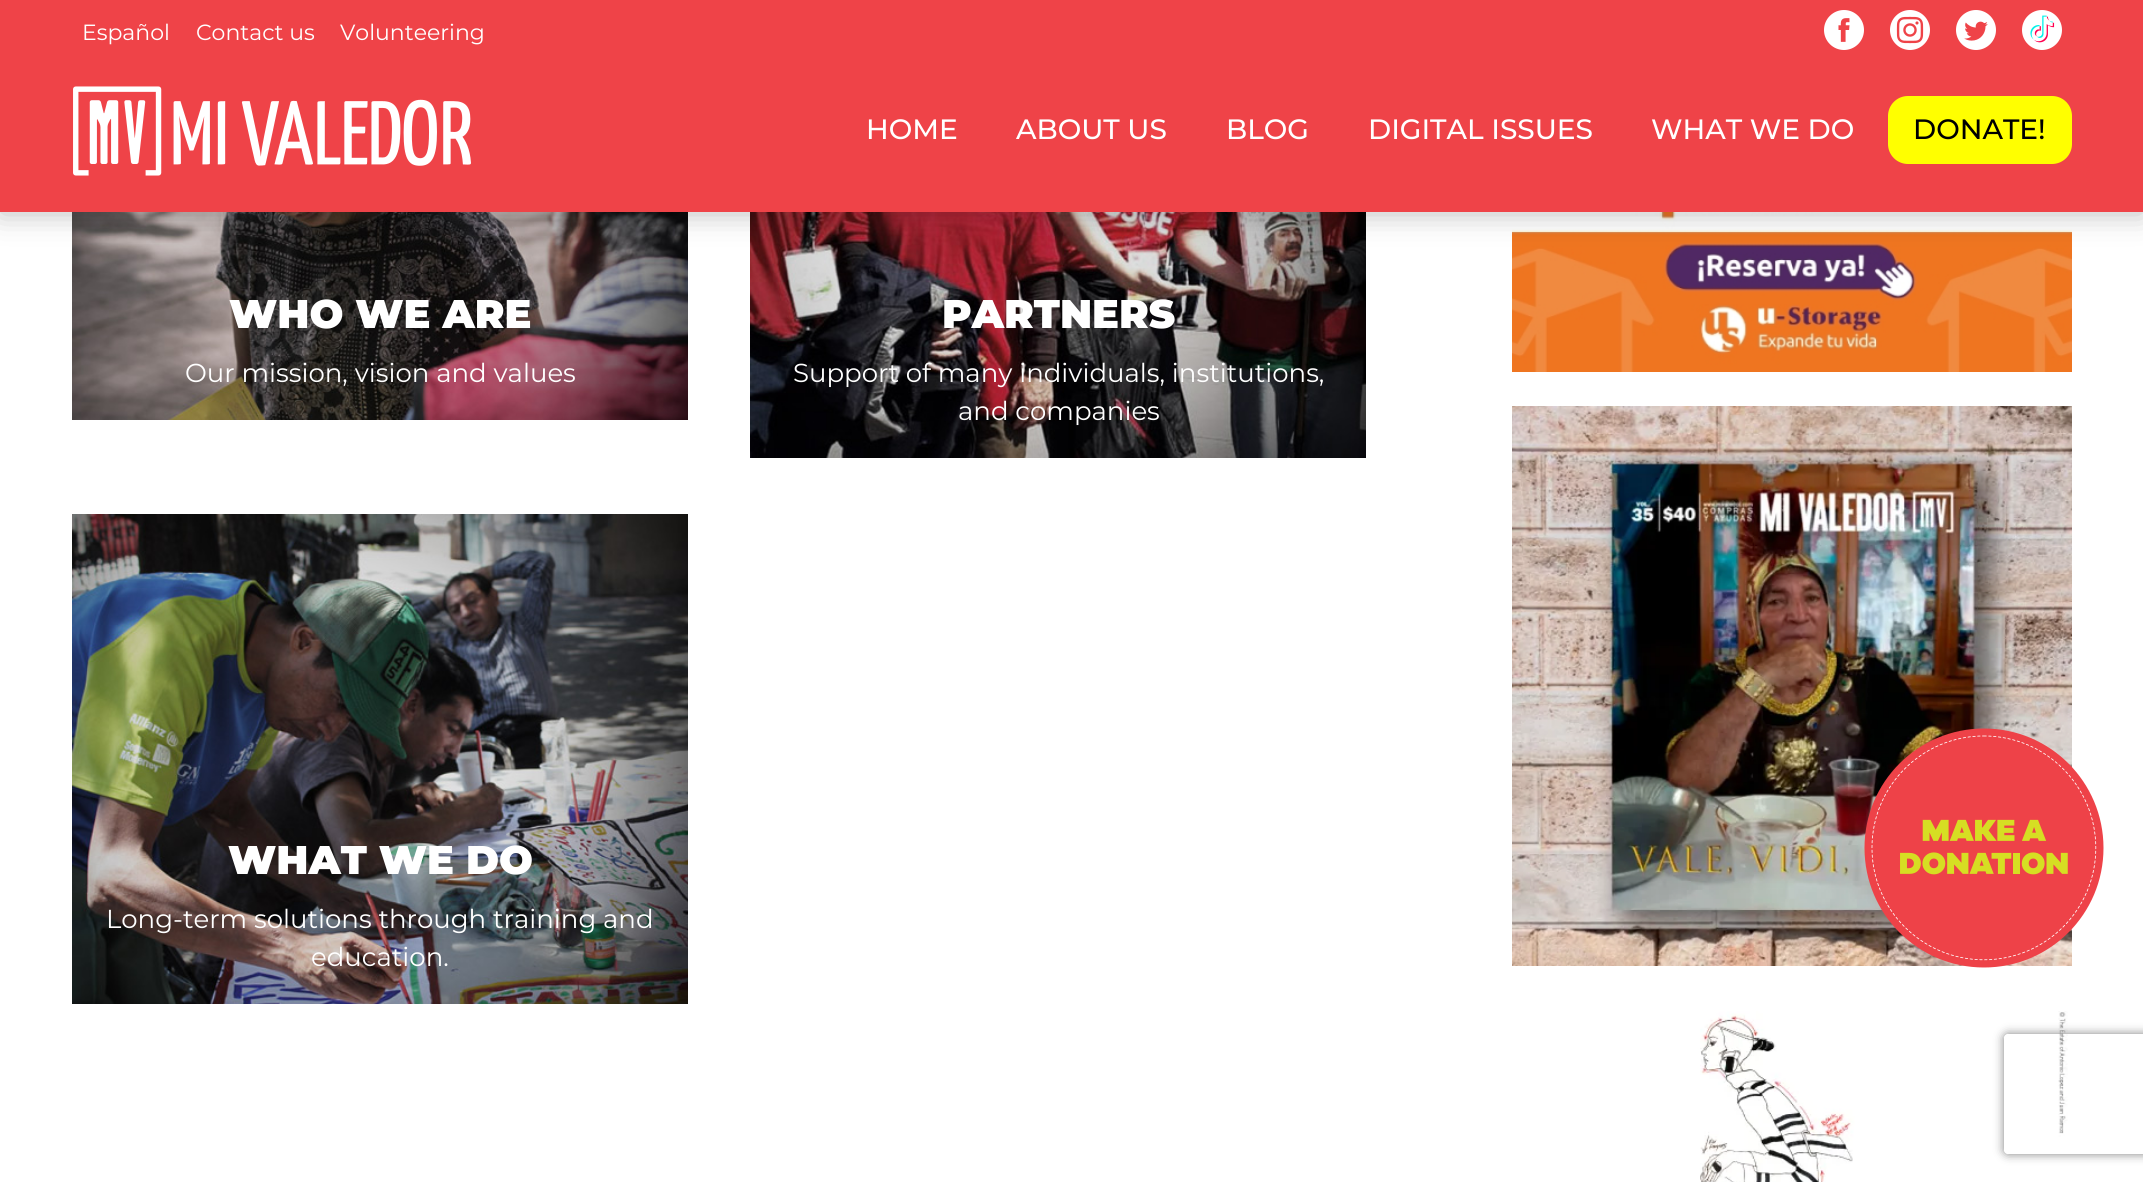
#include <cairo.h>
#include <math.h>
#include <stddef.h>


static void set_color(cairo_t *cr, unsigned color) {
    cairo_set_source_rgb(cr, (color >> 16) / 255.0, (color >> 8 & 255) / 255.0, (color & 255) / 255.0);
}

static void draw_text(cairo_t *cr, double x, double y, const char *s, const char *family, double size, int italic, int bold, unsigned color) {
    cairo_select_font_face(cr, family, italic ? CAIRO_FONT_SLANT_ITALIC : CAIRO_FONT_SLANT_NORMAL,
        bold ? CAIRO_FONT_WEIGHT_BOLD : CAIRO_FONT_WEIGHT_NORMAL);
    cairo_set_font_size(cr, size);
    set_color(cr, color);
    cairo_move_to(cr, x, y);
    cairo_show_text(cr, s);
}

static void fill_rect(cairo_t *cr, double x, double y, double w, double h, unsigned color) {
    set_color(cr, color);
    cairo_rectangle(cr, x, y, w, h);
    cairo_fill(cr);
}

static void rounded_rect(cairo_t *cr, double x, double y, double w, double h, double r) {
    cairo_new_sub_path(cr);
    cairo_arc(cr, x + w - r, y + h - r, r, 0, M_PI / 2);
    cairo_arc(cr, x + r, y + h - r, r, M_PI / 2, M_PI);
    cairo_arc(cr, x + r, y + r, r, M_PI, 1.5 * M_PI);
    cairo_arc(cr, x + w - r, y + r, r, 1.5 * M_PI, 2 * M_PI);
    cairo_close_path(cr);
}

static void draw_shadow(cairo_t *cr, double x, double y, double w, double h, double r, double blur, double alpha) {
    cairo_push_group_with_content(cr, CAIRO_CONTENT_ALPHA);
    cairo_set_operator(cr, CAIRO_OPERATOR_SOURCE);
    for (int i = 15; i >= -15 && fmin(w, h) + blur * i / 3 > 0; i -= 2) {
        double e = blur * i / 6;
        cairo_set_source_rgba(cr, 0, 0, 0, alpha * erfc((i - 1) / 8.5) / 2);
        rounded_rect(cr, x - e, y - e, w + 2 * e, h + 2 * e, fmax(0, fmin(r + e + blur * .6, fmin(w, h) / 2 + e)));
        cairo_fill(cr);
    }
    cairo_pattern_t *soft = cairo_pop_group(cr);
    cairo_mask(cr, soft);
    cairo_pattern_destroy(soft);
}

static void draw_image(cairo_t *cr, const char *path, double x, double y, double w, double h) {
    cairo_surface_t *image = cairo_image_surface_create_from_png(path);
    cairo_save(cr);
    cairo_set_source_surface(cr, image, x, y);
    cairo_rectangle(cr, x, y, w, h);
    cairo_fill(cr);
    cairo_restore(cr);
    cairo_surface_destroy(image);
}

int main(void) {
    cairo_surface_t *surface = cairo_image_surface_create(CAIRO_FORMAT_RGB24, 2143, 1182);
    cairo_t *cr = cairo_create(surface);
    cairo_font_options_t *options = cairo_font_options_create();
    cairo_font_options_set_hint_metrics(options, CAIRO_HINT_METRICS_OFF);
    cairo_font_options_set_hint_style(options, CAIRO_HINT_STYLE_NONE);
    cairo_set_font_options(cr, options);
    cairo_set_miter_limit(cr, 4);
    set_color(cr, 0xFFFFFF);
    cairo_paint(cr);
    draw_image(cr, "assets/img6.png", 72, 212, 616, 208);
    draw_image(cr, "assets/img7.png", 750, 212, 616, 246);
    draw_image(cr, "assets/img9.png", 1512, 212, 560, 160);
    set_color(cr, 0x000000);
    draw_shadow(cr, 0, 2, 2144, 212, 0, 15, 0.25);
    fill_rect(cr, 0, 0, 2143, 212, 0xEF4348);
    draw_text(cr, 82, 40, "Español", "Montserrat", 22, 0, 0, 0xFFFFFF);
    draw_text(cr, 196, 40, "Contact us", "Montserrat", 22, 0, 0, 0xFFFFFF);
    draw_text(cr, 340, 40, "Volunteering", "Montserrat", 22, 0, 0, 0xFFFFFF);
    draw_image(cr, "assets/img1.png", 1824, 10, 40, 40);
    draw_image(cr, "assets/img2.png", 1890, 10, 40, 40);
    draw_image(cr, "assets/img3.png", 1956, 10, 40, 40);
    draw_image(cr, "assets/img4.png", 2022, 10, 40, 40);
    draw_image(cr, "assets/img5.png", 73, 86, 398, 90);
    draw_text(cr, 866, 139, "HOME", "Montserrat Medium", 28, 0, 0, 0xFFFFFF);
    draw_text(cr, 1016, 139, "ABOUT US", "Montserrat Medium", 28, 0, 0, 0xFFFFFF);
    draw_text(cr, 1226, 139, "BLOG", "Montserrat Medium", 28, 0, 0, 0xFFFFFF);
    draw_text(cr, 1368, 139, "DIGITAL ISSUES", "Montserrat Medium", 28, 0, 0, 0xFFFFFF);
    draw_text(cr, 1651, 139, "WHAT WE DO", "Montserrat Medium", 28, 0, 0, 0xFFFFFF);
    set_color(cr, 0xFFFF00);
    rounded_rect(cr, 1888, 96, 184, 68, 20);
    cairo_fill(cr);
    draw_text(cr, 1913, 139, "DONATE!", "Montserrat Medium", 28, 0, 0, 0x000000);
    draw_text(cr, 229, 328, "WHO WE ARE", "Montserrat Black", 40, 0, 0, 0xFFFFFF);
    draw_text(cr, 185, 382, "Our mission, vision and values", "Montserrat", 26, 0, 0, 0xFFFFFF);
    draw_text(cr, 942, 328, "PARTNERS", "Montserrat Black", 40, 0, 0, 0xFFFFFF);
    draw_text(cr, 793, 382, "Support of many individuals, institutions,", "Montserrat", 26, 0, 0, 0xFFFFFF);
    draw_text(cr, 958, 420, "and companies", "Montserrat", 26, 0, 0, 0xFFFFFF);
    draw_image(cr, "assets/img8.png", 72, 514, 616, 490);
    draw_text(cr, 228, 874, "WHAT WE DO", "Montserrat Black", 40, 0, 0, 0xFFFFFF);
    draw_text(cr, 106, 928, "Long-term solutions through training and", "Montserrat", 26, 0, 0, 0xFFFFFF);
    draw_text(cr, 311, 966, "education.", "Montserrat", 26, 0, 0, 0xFFFFFF);
    draw_image(cr, "assets/img10.png", 1512, 406, 560, 560);
    draw_image(cr, "assets/img11.png", 1700, 1011, 368, 171);
    draw_image(cr, "assets/img12.png", 1864, 728, 240, 240);
    cairo_save(cr);
    cairo_set_fill_rule(cr, CAIRO_FILL_RULE_EVEN_ODD);
    cairo_new_path(cr);
    cairo_move_to(cr, 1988, 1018);
    cairo_line_to(cr, 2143, 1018);
    cairo_line_to(cr, 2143, 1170);
    cairo_line_to(cr, 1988, 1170);
    cairo_close_path(cr);
    cairo_move_to(cr, 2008, 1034);
    cairo_line_to(cr, 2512, 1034);
    cairo_curve_to(cr, 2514, 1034, 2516, 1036, 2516, 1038);
    cairo_line_to(cr, 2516, 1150);
    cairo_curve_to(cr, 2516, 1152, 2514, 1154, 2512, 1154);
    cairo_line_to(cr, 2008, 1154);
    cairo_curve_to(cr, 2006, 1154, 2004, 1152, 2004, 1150);
    cairo_line_to(cr, 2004, 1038);
    cairo_curve_to(cr, 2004, 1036, 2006, 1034, 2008, 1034);
    cairo_close_path(cr);
    cairo_clip(cr);
    set_color(cr, 0x808080);
    draw_shadow(cr, 2004, 1034, 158, 120, 4, 5, 1);
    cairo_restore(cr);
    cairo_surface_write_to_png(surface, "output.png");
    cairo_font_options_destroy(options);
    cairo_destroy(cr);
    cairo_surface_destroy(surface);
    return 0;
}
